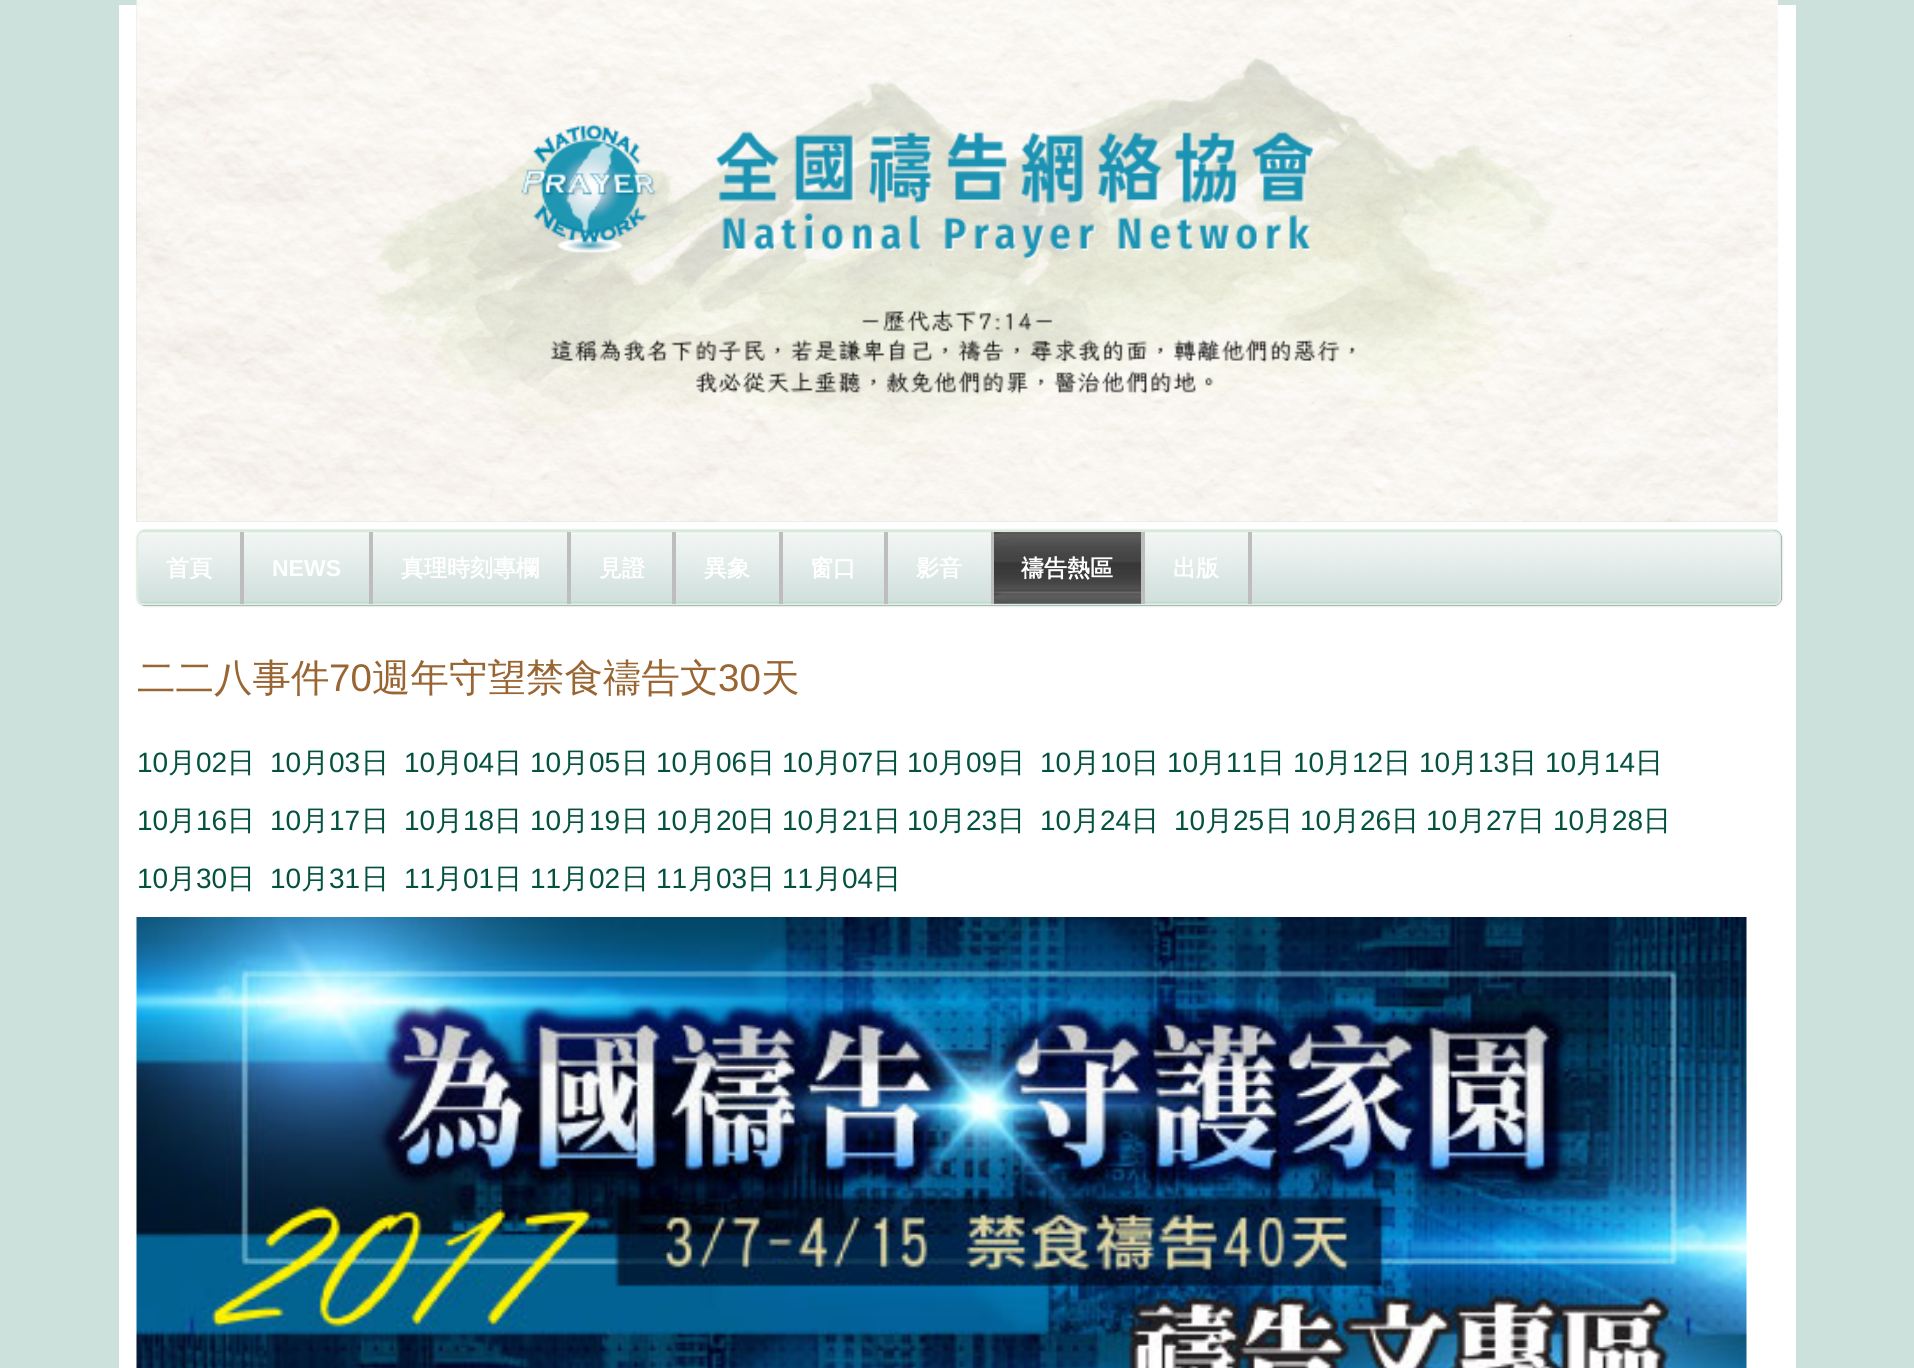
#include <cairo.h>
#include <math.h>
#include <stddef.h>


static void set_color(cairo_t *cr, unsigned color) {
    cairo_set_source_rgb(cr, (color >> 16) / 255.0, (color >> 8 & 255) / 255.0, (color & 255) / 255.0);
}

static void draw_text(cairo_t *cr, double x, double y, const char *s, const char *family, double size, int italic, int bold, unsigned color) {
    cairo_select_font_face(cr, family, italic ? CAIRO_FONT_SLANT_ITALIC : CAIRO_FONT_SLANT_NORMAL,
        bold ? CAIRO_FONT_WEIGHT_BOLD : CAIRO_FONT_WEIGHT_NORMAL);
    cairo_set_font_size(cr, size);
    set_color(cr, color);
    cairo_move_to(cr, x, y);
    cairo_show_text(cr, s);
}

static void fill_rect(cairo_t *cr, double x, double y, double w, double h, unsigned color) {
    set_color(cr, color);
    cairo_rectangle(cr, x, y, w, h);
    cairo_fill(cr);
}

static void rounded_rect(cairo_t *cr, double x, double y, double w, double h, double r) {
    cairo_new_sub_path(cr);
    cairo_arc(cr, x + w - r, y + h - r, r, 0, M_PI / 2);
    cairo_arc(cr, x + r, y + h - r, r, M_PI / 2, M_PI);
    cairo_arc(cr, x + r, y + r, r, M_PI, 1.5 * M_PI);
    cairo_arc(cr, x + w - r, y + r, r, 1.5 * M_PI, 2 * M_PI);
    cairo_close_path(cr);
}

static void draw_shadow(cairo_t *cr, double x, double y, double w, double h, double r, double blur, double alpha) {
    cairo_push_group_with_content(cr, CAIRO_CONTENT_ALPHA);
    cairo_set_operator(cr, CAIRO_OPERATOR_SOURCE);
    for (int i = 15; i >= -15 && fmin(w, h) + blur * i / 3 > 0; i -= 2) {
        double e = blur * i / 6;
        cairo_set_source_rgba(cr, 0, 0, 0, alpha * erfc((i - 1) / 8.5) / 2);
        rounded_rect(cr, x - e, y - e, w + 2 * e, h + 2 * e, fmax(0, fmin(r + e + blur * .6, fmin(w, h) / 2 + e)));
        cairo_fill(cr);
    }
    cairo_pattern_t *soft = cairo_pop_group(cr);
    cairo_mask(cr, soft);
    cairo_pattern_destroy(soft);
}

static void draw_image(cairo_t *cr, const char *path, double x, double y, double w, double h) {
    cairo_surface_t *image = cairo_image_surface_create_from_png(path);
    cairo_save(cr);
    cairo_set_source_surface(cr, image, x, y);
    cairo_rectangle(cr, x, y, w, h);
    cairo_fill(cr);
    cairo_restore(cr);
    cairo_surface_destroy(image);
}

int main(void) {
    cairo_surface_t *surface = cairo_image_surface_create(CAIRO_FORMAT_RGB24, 1914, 1368);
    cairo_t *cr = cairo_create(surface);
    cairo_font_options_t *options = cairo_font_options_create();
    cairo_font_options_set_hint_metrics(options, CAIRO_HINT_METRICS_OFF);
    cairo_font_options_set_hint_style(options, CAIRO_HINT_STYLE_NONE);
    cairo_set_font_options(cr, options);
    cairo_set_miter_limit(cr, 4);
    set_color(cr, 0xCCE0DC);
    cairo_paint(cr);
    fill_rect(cr, 119, 5, 1677, 1363, 0xFFFFFF);
    draw_image(cr, "assets/img1.png", 136, 0, 1642, 522);
    draw_image(cr, "assets/img2.png", 136, 0, 1642, 522);
    set_color(cr, 0xCCCCCC);
    draw_shadow(cr, 137, 530, 1645, 76, 9, 1, 1);
    set_color(cr, 0x667788);
    rounded_rect(cr, 137, 530, 1645, 76, 9);
    cairo_fill(cr);
    draw_image(cr, "assets/img3.png", 136, 530, 1646, 76);
    cairo_new_path(cr);
    cairo_move_to(cr, 139.5, 533.5);
    cairo_curve_to(cr, 141, 532, 143, 531, 145, 531);
    cairo_line_to(cr, 1773, 531);
    cairo_curve_to(cr, 1775, 531, 1777, 532, 1778.5, 533.5);
    set_color(cr, 0xDBF2DE);
    cairo_set_line_width(cr, 1.8);
    cairo_stroke(cr);
    cairo_new_path(cr);
    cairo_move_to(cr, 1778.5, 533.5);
    cairo_curve_to(cr, 1780, 535, 1780.5, 537, 1780.5, 539);
    cairo_line_to(cr, 1780.5, 597);
    cairo_curve_to(cr, 1780.5, 599, 1780, 601, 1778.5, 602.5);
    set_color(cr, 0xDEEFE2);
    cairo_stroke(cr);
    cairo_new_path(cr);
    cairo_move_to(cr, 1778.5, 602.5);
    cairo_curve_to(cr, 1777, 604, 1775, 604.5, 1773, 604.5);
    cairo_line_to(cr, 145, 604.5);
    cairo_curve_to(cr, 143, 604.5, 141, 604, 139.5, 602.5);
    set_color(cr, 0xDBF2DE);
    cairo_stroke(cr);
    cairo_new_path(cr);
    cairo_move_to(cr, 139.5, 602.5);
    cairo_curve_to(cr, 138, 601, 137.5, 599, 137.5, 597);
    cairo_line_to(cr, 137.5, 539);
    cairo_curve_to(cr, 137.5, 537, 138, 535, 139.5, 533.5);
    set_color(cr, 0xDEEFE2);
    cairo_stroke(cr);
    fill_rect(cr, 240, 532, 4, 72, 0xBDBDBD);
    draw_text(cr, 166, 576, "首頁", "WenQuanYi Zen Hei", 23, 0, 1, 0xFFFFFF);
    fill_rect(cr, 369, 532, 4, 72, 0xBDBDBD);
    draw_text(cr, 272, 576, "NEWS", "Liberation Sans", 23, 0, 1, 0xFFFFFF);
    fill_rect(cr, 567, 532, 4, 72, 0xBDBDBD);
    draw_text(cr, 401, 576, "真理時刻專欄", "WenQuanYi Zen Hei", 23, 0, 1, 0xFFFFFF);
    fill_rect(cr, 672, 532, 4, 72, 0xBDBDBD);
    draw_text(cr, 599, 576, "見證", "WenQuanYi Zen Hei", 23, 0, 1, 0xFFFFFF);
    fill_rect(cr, 779, 532, 4, 72, 0xBDBDBD);
    draw_text(cr, 704, 576, "異象", "WenQuanYi Zen Hei", 23, 0, 1, 0xFFFFFF);
    fill_rect(cr, 884, 532, 4, 72, 0xBDBDBD);
    draw_text(cr, 810, 576, "窗口", "WenQuanYi Zen Hei", 23, 0, 1, 0xFFFFFF);
    fill_rect(cr, 991, 532, 4, 72, 0xBDBDBD);
    draw_text(cr, 916, 576, "影音", "WenQuanYi Zen Hei", 23, 0, 1, 0xFFFFFF);
    draw_image(cr, "assets/img4.png", 994, 532, 147, 72);
    fill_rect(cr, 1141, 532, 4, 72, 0xBDBDBD);
    draw_text(cr, 1021, 576, "禱告熱區", "WenQuanYi Zen Hei", 23, 0, 1, 0xFFFFFF);
    fill_rect(cr, 1248, 532, 4, 72, 0xBDBDBD);
    draw_text(cr, 1173, 576, "出版", "WenQuanYi Zen Hei", 23, 0, 1, 0xFFFFFF);
    draw_text(cr, 137, 691, "二二八事件", "WenQuanYi Zen Hei Medium", 38.5, 0, 0, 0x996633);
    draw_text(cr, 329, 691, "70", "Liberation Sans", 38.5, 0, 0, 0x996633);
    draw_text(cr, 372, 691, "週年守望禁食禱告文", "WenQuanYi Zen Hei Medium", 38.5, 0, 0, 0x996633);
    draw_text(cr, 718, 691, "30", "Liberation Sans", 38.5, 0, 0, 0x996633);
    draw_text(cr, 761, 691, "天", "WenQuanYi Zen Hei Medium", 38.5, 0, 0, 0x996633);
    draw_text(cr, 137, 772, "10", "Liberation Sans", 28, 0, 0, 0x04513F);
    draw_text(cr, 168, 772, "月", "WenQuanYi Zen Hei Medium", 28, 0, 0, 0x04513F);
    draw_text(cr, 196, 772, "02", "Liberation Sans", 28, 0, 0, 0x04513F);
    draw_text(cr, 227, 772, "日", "WenQuanYi Zen Hei Medium", 28, 0, 0, 0x04513F);
    draw_text(cr, 270, 772, "10", "Liberation Sans", 28, 0, 0, 0x04513F);
    draw_text(cr, 301, 772, "月", "WenQuanYi Zen Hei Medium", 28, 0, 0, 0x04513F);
    draw_text(cr, 329, 772, "03", "Liberation Sans", 28, 0, 0, 0x04513F);
    draw_text(cr, 361, 772, "日", "WenQuanYi Zen Hei Medium", 28, 0, 0, 0x04513F);
    draw_text(cr, 404, 772, "10", "Liberation Sans", 28, 0, 0, 0x04513F);
    draw_text(cr, 435, 772, "月", "WenQuanYi Zen Hei Medium", 28, 0, 0, 0x04513F);
    draw_text(cr, 463, 772, "04", "Liberation Sans", 28, 0, 0, 0x04513F);
    draw_text(cr, 494, 772, "日", "WenQuanYi Zen Hei Medium", 28, 0, 0, 0x04513F);
    draw_text(cr, 530, 772, "10", "Liberation Sans", 28, 0, 0, 0x04513F);
    draw_text(cr, 561, 772, "月", "WenQuanYi Zen Hei Medium", 28, 0, 0, 0x04513F);
    draw_text(cr, 589, 772, "05", "Liberation Sans", 28, 0, 0, 0x04513F);
    draw_text(cr, 621, 772, "日", "WenQuanYi Zen Hei Medium", 28, 0, 0, 0x04513F);
    draw_text(cr, 656, 772, "10", "Liberation Sans", 28, 0, 0, 0x04513F);
    draw_text(cr, 688, 772, "月", "WenQuanYi Zen Hei Medium", 28, 0, 0, 0x04513F);
    draw_text(cr, 716, 772, "06", "Liberation Sans", 28, 0, 0, 0x04513F);
    draw_text(cr, 747, 772, "日", "WenQuanYi Zen Hei Medium", 28, 0, 0, 0x04513F);
    draw_text(cr, 782, 772, "10", "Liberation Sans", 28, 0, 0, 0x04513F);
    draw_text(cr, 814, 772, "月", "WenQuanYi Zen Hei Medium", 28, 0, 0, 0x04513F);
    draw_text(cr, 842, 772, "07", "Liberation Sans", 28, 0, 0, 0x04513F);
    draw_text(cr, 873, 772, "日", "WenQuanYi Zen Hei Medium", 28, 0, 0, 0x04513F);
    draw_text(cr, 907, 772, "10", "Liberation Sans", 28, 0, 0, 0x04513F);
    draw_text(cr, 938, 772, "月", "WenQuanYi Zen Hei Medium", 28, 0, 0, 0x04513F);
    draw_text(cr, 966, 772, "09", "Liberation Sans", 28, 0, 0, 0x04513F);
    draw_text(cr, 997, 772, "日", "WenQuanYi Zen Hei Medium", 28, 0, 0, 0x04513F);
    draw_text(cr, 1040, 772, "10", "Liberation Sans", 28, 0, 0, 0x04513F);
    draw_text(cr, 1072, 772, "月", "WenQuanYi Zen Hei Medium", 28, 0, 0, 0x04513F);
    draw_text(cr, 1100, 772, "10", "Liberation Sans", 28, 0, 0, 0x04513F);
    draw_text(cr, 1131, 772, "日", "WenQuanYi Zen Hei Medium", 28, 0, 0, 0x04513F);
    draw_text(cr, 1167, 772, "10", "Liberation Sans", 28, 0, 0, 0x04513F);
    draw_text(cr, 1198, 772, "月", "WenQuanYi Zen Hei Medium", 28, 0, 0, 0x04513F);
    draw_text(cr, 1226, 772, "11", "Liberation Sans", 28, 0, 0, 0x04513F);
    draw_text(cr, 1257, 772, "日", "WenQuanYi Zen Hei Medium", 28, 0, 0, 0x04513F);
    draw_text(cr, 1293, 772, "10", "Liberation Sans", 28, 0, 0, 0x04513F);
    draw_text(cr, 1324, 772, "月", "WenQuanYi Zen Hei Medium", 28, 0, 0, 0x04513F);
    draw_text(cr, 1352, 772, "12", "Liberation Sans", 28, 0, 0, 0x04513F);
    draw_text(cr, 1383, 772, "日", "WenQuanYi Zen Hei Medium", 28, 0, 0, 0x04513F);
    draw_text(cr, 1419, 772, "10", "Liberation Sans", 28, 0, 0, 0x04513F);
    draw_text(cr, 1450, 772, "月", "WenQuanYi Zen Hei Medium", 28, 0, 0, 0x04513F);
    draw_text(cr, 1478, 772, "13", "Liberation Sans", 28, 0, 0, 0x04513F);
    draw_text(cr, 1509, 772, "日", "WenQuanYi Zen Hei Medium", 28, 0, 0, 0x04513F);
    draw_text(cr, 1545, 772, "10", "Liberation Sans", 28, 0, 0, 0x04513F);
    draw_text(cr, 1576, 772, "月", "WenQuanYi Zen Hei Medium", 28, 0, 0, 0x04513F);
    draw_text(cr, 1604, 772, "14", "Liberation Sans", 28, 0, 0, 0x04513F);
    draw_text(cr, 1635, 772, "日", "WenQuanYi Zen Hei Medium", 28, 0, 0, 0x04513F);
    draw_text(cr, 137, 830, "10", "Liberation Sans", 28, 0, 0, 0x04513F);
    draw_text(cr, 168, 830, "月", "WenQuanYi Zen Hei Medium", 28, 0, 0, 0x04513F);
    draw_text(cr, 196, 830, "16", "Liberation Sans", 28, 0, 0, 0x04513F);
    draw_text(cr, 227, 830, "日", "WenQuanYi Zen Hei Medium", 28, 0, 0, 0x04513F);
    draw_text(cr, 270, 830, "10", "Liberation Sans", 28, 0, 0, 0x04513F);
    draw_text(cr, 301, 830, "月", "WenQuanYi Zen Hei Medium", 28, 0, 0, 0x04513F);
    draw_text(cr, 329, 830, "17", "Liberation Sans", 28, 0, 0, 0x04513F);
    draw_text(cr, 361, 830, "日", "WenQuanYi Zen Hei Medium", 28, 0, 0, 0x04513F);
    draw_text(cr, 404, 830, "10", "Liberation Sans", 28, 0, 0, 0x04513F);
    draw_text(cr, 435, 830, "月", "WenQuanYi Zen Hei Medium", 28, 0, 0, 0x04513F);
    draw_text(cr, 463, 830, "18", "Liberation Sans", 28, 0, 0, 0x04513F);
    draw_text(cr, 494, 830, "日", "WenQuanYi Zen Hei Medium", 28, 0, 0, 0x04513F);
    draw_text(cr, 530, 830, "10", "Liberation Sans", 28, 0, 0, 0x04513F);
    draw_text(cr, 561, 830, "月", "WenQuanYi Zen Hei Medium", 28, 0, 0, 0x04513F);
    draw_text(cr, 589, 830, "19", "Liberation Sans", 28, 0, 0, 0x04513F);
    draw_text(cr, 621, 830, "日", "WenQuanYi Zen Hei Medium", 28, 0, 0, 0x04513F);
    draw_text(cr, 656, 830, "10", "Liberation Sans", 28, 0, 0, 0x04513F);
    draw_text(cr, 688, 830, "月", "WenQuanYi Zen Hei Medium", 28, 0, 0, 0x04513F);
    draw_text(cr, 716, 830, "20", "Liberation Sans", 28, 0, 0, 0x04513F);
    draw_text(cr, 747, 830, "日", "WenQuanYi Zen Hei Medium", 28, 0, 0, 0x04513F);
    draw_text(cr, 782, 830, "10", "Liberation Sans", 28, 0, 0, 0x04513F);
    draw_text(cr, 814, 830, "月", "WenQuanYi Zen Hei Medium", 28, 0, 0, 0x04513F);
    draw_text(cr, 842, 830, "21", "Liberation Sans", 28, 0, 0, 0x04513F);
    draw_text(cr, 873, 830, "日", "WenQuanYi Zen Hei Medium", 28, 0, 0, 0x04513F);
    draw_text(cr, 907, 830, "10", "Liberation Sans", 28, 0, 0, 0x04513F);
    draw_text(cr, 938, 830, "月", "WenQuanYi Zen Hei Medium", 28, 0, 0, 0x04513F);
    draw_text(cr, 966, 830, "23", "Liberation Sans", 28, 0, 0, 0x04513F);
    draw_text(cr, 997, 830, "日", "WenQuanYi Zen Hei Medium", 28, 0, 0, 0x04513F);
    draw_text(cr, 1040, 830, "10", "Liberation Sans", 28, 0, 0, 0x04513F);
    draw_text(cr, 1072, 830, "月", "WenQuanYi Zen Hei Medium", 28, 0, 0, 0x04513F);
    draw_text(cr, 1100, 830, "24", "Liberation Sans", 28, 0, 0, 0x04513F);
    draw_text(cr, 1131, 830, "日", "WenQuanYi Zen Hei Medium", 28, 0, 0, 0x04513F);
    draw_text(cr, 1174, 830, "10", "Liberation Sans", 28, 0, 0, 0x04513F);
    draw_text(cr, 1205, 830, "月", "WenQuanYi Zen Hei Medium", 28, 0, 0, 0x04513F);
    draw_text(cr, 1233, 830, "25", "Liberation Sans", 28, 0, 0, 0x04513F);
    draw_text(cr, 1265, 830, "日", "WenQuanYi Zen Hei Medium", 28, 0, 0, 0x04513F);
    draw_text(cr, 1300, 830, "10", "Liberation Sans", 28, 0, 0, 0x04513F);
    draw_text(cr, 1332, 830, "月", "WenQuanYi Zen Hei Medium", 28, 0, 0, 0x04513F);
    draw_text(cr, 1360, 830, "26", "Liberation Sans", 28, 0, 0, 0x04513F);
    draw_text(cr, 1391, 830, "日", "WenQuanYi Zen Hei Medium", 28, 0, 0, 0x04513F);
    draw_text(cr, 1426, 830, "10", "Liberation Sans", 28, 0, 0, 0x04513F);
    draw_text(cr, 1458, 830, "月", "WenQuanYi Zen Hei Medium", 28, 0, 0, 0x04513F);
    draw_text(cr, 1486, 830, "27", "Liberation Sans", 28, 0, 0, 0x04513F);
    draw_text(cr, 1517, 830, "日", "WenQuanYi Zen Hei Medium", 28, 0, 0, 0x04513F);
    draw_text(cr, 1553, 830, "10", "Liberation Sans", 28, 0, 0, 0x04513F);
    draw_text(cr, 1584, 830, "月", "WenQuanYi Zen Hei Medium", 28, 0, 0, 0x04513F);
    draw_text(cr, 1612, 830, "28", "Liberation Sans", 28, 0, 0, 0x04513F);
    draw_text(cr, 1643, 830, "日", "WenQuanYi Zen Hei Medium", 28, 0, 0, 0x04513F);
    draw_text(cr, 137, 888, "10", "Liberation Sans", 28, 0, 0, 0x04513F);
    draw_text(cr, 168, 888, "月", "WenQuanYi Zen Hei Medium", 28, 0, 0, 0x04513F);
    draw_text(cr, 196, 888, "30", "Liberation Sans", 28, 0, 0, 0x04513F);
    draw_text(cr, 227, 888, "日", "WenQuanYi Zen Hei Medium", 28, 0, 0, 0x04513F);
    draw_text(cr, 270, 888, "10", "Liberation Sans", 28, 0, 0, 0x04513F);
    draw_text(cr, 301, 888, "月", "WenQuanYi Zen Hei Medium", 28, 0, 0, 0x04513F);
    draw_text(cr, 329, 888, "31", "Liberation Sans", 28, 0, 0, 0x04513F);
    draw_text(cr, 361, 888, "日", "WenQuanYi Zen Hei Medium", 28, 0, 0, 0x04513F);
    draw_text(cr, 404, 888, "11", "Liberation Sans", 28, 0, 0, 0x04513F);
    draw_text(cr, 435, 888, "月", "WenQuanYi Zen Hei Medium", 28, 0, 0, 0x04513F);
    draw_text(cr, 463, 888, "01", "Liberation Sans", 28, 0, 0, 0x04513F);
    draw_text(cr, 494, 888, "日", "WenQuanYi Zen Hei Medium", 28, 0, 0, 0x04513F);
    draw_text(cr, 530, 888, "11", "Liberation Sans", 28, 0, 0, 0x04513F);
    draw_text(cr, 561, 888, "月", "WenQuanYi Zen Hei Medium", 28, 0, 0, 0x04513F);
    draw_text(cr, 589, 888, "02", "Liberation Sans", 28, 0, 0, 0x04513F);
    draw_text(cr, 621, 888, "日", "WenQuanYi Zen Hei Medium", 28, 0, 0, 0x04513F);
    draw_text(cr, 656, 888, "11", "Liberation Sans", 28, 0, 0, 0x04513F);
    draw_text(cr, 688, 888, "月", "WenQuanYi Zen Hei Medium", 28, 0, 0, 0x04513F);
    draw_text(cr, 716, 888, "03", "Liberation Sans", 28, 0, 0, 0x04513F);
    draw_text(cr, 747, 888, "日", "WenQuanYi Zen Hei Medium", 28, 0, 0, 0x04513F);
    draw_text(cr, 782, 888, "11", "Liberation Sans", 28, 0, 0, 0x04513F);
    draw_text(cr, 814, 888, "月", "WenQuanYi Zen Hei Medium", 28, 0, 0, 0x04513F);
    draw_text(cr, 842, 888, "04", "Liberation Sans", 28, 0, 0, 0x04513F);
    draw_text(cr, 873, 888, "日", "WenQuanYi Zen Hei Medium", 28, 0, 0, 0x04513F);
    draw_image(cr, "assets/img5.png", 136, 917, 1611, 451);
    cairo_surface_write_to_png(surface, "output.png");
    cairo_font_options_destroy(options);
    cairo_destroy(cr);
    cairo_surface_destroy(surface);
    return 0;
}
